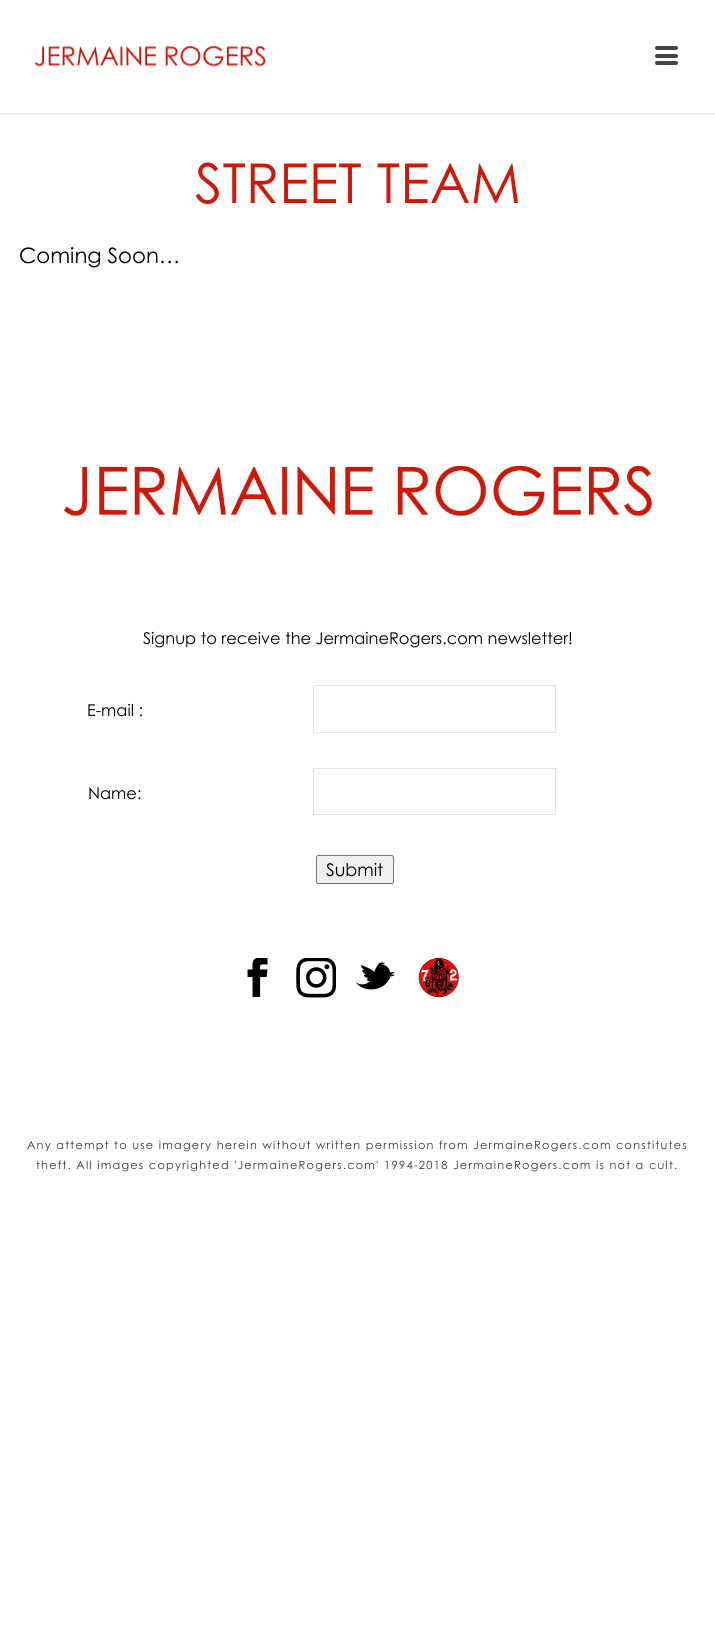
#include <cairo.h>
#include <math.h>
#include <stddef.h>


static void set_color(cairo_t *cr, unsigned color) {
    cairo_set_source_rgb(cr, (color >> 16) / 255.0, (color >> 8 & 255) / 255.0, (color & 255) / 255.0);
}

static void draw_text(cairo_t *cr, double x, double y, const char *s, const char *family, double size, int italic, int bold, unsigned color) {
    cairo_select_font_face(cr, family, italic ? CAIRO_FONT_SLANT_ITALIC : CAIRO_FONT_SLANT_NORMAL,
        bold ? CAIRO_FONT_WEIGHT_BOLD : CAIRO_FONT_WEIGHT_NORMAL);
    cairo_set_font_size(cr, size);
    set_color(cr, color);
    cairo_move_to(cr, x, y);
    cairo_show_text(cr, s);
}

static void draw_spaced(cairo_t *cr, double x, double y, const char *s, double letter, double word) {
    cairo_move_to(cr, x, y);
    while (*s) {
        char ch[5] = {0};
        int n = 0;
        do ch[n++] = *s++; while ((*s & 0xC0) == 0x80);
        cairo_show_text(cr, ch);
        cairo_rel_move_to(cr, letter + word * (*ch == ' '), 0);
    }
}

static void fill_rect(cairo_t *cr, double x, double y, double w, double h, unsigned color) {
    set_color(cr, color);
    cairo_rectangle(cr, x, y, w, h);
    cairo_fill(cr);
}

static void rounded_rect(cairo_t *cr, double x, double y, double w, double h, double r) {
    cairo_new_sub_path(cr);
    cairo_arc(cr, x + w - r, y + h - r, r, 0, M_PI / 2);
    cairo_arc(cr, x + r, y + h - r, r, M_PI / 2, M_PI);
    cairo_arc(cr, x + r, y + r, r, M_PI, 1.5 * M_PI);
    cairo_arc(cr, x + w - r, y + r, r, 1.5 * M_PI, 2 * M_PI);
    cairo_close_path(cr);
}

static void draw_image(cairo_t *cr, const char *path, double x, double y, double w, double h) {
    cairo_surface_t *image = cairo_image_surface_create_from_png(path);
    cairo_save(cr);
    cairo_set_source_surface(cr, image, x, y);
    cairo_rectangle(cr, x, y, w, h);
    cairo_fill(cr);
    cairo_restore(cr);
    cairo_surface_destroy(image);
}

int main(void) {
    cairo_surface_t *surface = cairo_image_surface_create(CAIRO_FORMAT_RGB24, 715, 1634);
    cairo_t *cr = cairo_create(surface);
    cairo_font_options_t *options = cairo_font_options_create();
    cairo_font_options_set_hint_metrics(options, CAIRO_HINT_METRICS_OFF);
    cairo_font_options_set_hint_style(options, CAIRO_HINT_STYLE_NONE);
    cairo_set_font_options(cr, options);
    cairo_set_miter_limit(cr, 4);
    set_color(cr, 0xFFFFFF);
    cairo_paint(cr);
    fill_rect(cr, 0, 113, 715, 2, 0xEDEDED);
    draw_image(cr, "assets/img1.png", 34, 46, 232, 21);
    set_color(cr, 0x444444);
    rounded_rect(cr, 655, 46, 23, 4, 2);
    cairo_fill(cr);
    rounded_rect(cr, 655, 54, 23, 4, 2);
    cairo_fill(cr);
    rounded_rect(cr, 655, 61, 23, 4, 2);
    cairo_fill(cr);
    draw_text(cr, 195, 203, "STREET TEAM", "Century Gothic", 55, 0, 0, 0xCD190A);
    draw_text(cr, 19, 263, "Coming Soon…", "Century Gothic", 21.25, 0, 0, 0x000000);
    draw_image(cr, "assets/img2.png", 63, 463, 589, 56);
    draw_text(cr, 143, 644, "Signup to receive the JermaineRogers.com newsletter!", "Century Gothic", 16.25, 0, 0, 0x000000);
    draw_text(cr, 87, 716, "E-mail :", "Century Gothic", 16.25, 0, 0, 0x000000);
    cairo_rectangle(cr, 313.5, 685.5, 242, 47);
    set_color(cr, 0xE3E3E3);
    cairo_set_line_width(cr, 1);
    cairo_stroke(cr);
    draw_text(cr, 88, 799, "Name:", "Century Gothic", 16.25, 0, 0, 0x000000);
    cairo_rectangle(cr, 313.5, 768.5, 242, 46);
    set_color(cr, 0xE3E3E3);
    cairo_stroke(cr);
    set_color(cr, 0xEFEFEF);
    rounded_rect(cr, 316.5, 855.5, 77, 28, 2);
    cairo_fill_preserve(cr);
    set_color(cr, 0x767676);
    cairo_stroke(cr);
    draw_text(cr, 326, 876, "Submit", "Century Gothic", 17.5, 0, 0, 0x000000);
    draw_image(cr, "assets/img3.png", 247, 958, 21, 39);
    draw_image(cr, "assets/img4.png", 296, 958, 40, 40);
    draw_image(cr, "assets/img5.png", 355, 962, 40, 28);
    draw_image(cr, "assets/img6.png", 418, 957, 41, 41);
    cairo_set_font_size(cr, 11.25);
    set_color(cr, 0x333333);
    draw_spaced(cr, 27, 1149, "Any attempt to use imagery herein without written permission from JermaineRogers.com constitutes", 1.25, 0);
    draw_spaced(cr, 36, 1169, "theft. All images copyrighted 'JermaineRogers.com' 1994-2018 JermaineRogers.com is not a cult.", 1.25, 0);
    cairo_surface_write_to_png(surface, "output.png");
    cairo_font_options_destroy(options);
    cairo_destroy(cr);
    cairo_surface_destroy(surface);
    return 0;
}
